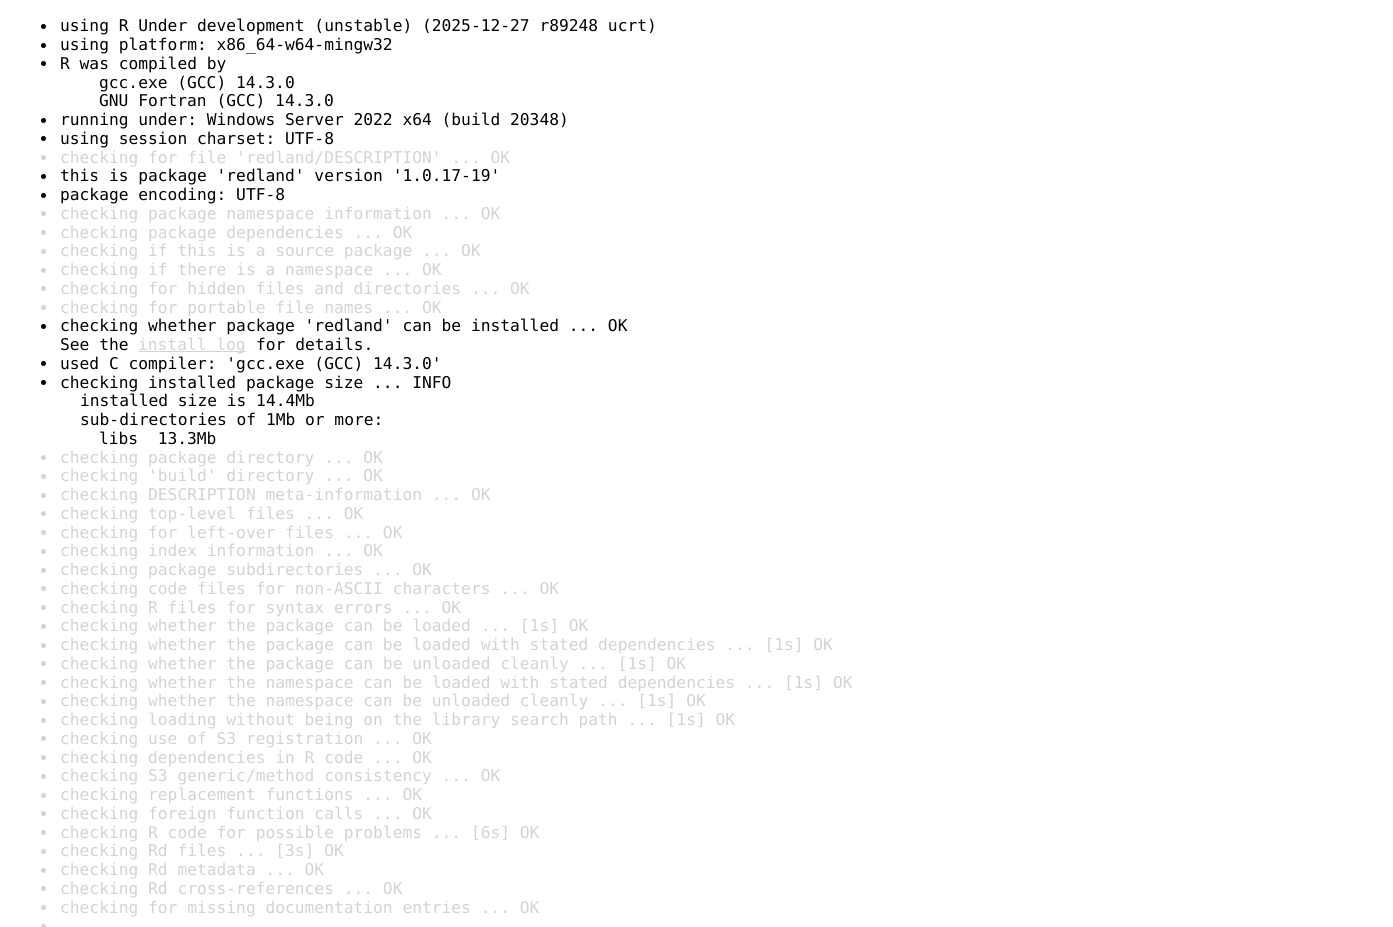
#include <cairo.h>
#include <math.h>
#include <stddef.h>


static void set_color(cairo_t *cr, unsigned color) {
    cairo_set_source_rgb(cr, (color >> 16) / 255.0, (color >> 8 & 255) / 255.0, (color & 255) / 255.0);
}

static void draw_text(cairo_t *cr, double x, double y, const char *s, const char *family, double size, int italic, int bold, unsigned color) {
    cairo_select_font_face(cr, family, italic ? CAIRO_FONT_SLANT_ITALIC : CAIRO_FONT_SLANT_NORMAL,
        bold ? CAIRO_FONT_WEIGHT_BOLD : CAIRO_FONT_WEIGHT_NORMAL);
    cairo_set_font_size(cr, size);
    set_color(cr, color);
    cairo_move_to(cr, x, y);
    cairo_show_text(cr, s);
}

static void fill_rect(cairo_t *cr, double x, double y, double w, double h, unsigned color) {
    set_color(cr, color);
    cairo_rectangle(cr, x, y, w, h);
    cairo_fill(cr);
}

int main(void) {
    cairo_surface_t *surface = cairo_image_surface_create(CAIRO_FORMAT_RGB24, 1393, 927);
    cairo_t *cr = cairo_create(surface);
    cairo_font_options_t *options = cairo_font_options_create();
    cairo_font_options_set_hint_metrics(options, CAIRO_HINT_METRICS_OFF);
    cairo_font_options_set_hint_style(options, CAIRO_HINT_STYLE_NONE);
    cairo_set_font_options(cr, options);
    cairo_set_miter_limit(cr, 4);
    set_color(cr, 0xFFFFFF);
    cairo_paint(cr);
    set_color(cr, 0x000000);
    cairo_arc(cr, 43.5, 26.5, 2.5, 0, 2 * M_PI);
    cairo_fill(cr);
    draw_text(cr, 60, 31, "using R Under development (unstable) (2025-12-27 r89248 ucrt)", "DejaVu Sans Mono", 16.25, 0, 0, 0x000000);
    cairo_new_path(cr);
    cairo_arc(cr, 43.5, 45.5, 2.5, 0, 2 * M_PI);
    cairo_fill(cr);
    draw_text(cr, 60, 50, "using platform: x86_64-w64-mingw32", "DejaVu Sans Mono", 16.25, 0, 0, 0x000000);
    cairo_new_path(cr);
    cairo_arc(cr, 43.5, 63.5, 2.5, 0, 2 * M_PI);
    cairo_fill(cr);
    draw_text(cr, 60, 69, "R was compiled by", "DejaVu Sans Mono", 16.25, 0, 0, 0x000000);
    draw_text(cr, 99, 88, "gcc.exe (GCC) 14.3.0", "DejaVu Sans Mono", 16.25, 0, 0, 0x000000);
    draw_text(cr, 99, 106, "GNU Fortran (GCC) 14.3.0", "DejaVu Sans Mono", 16.25, 0, 0, 0x000000);
    cairo_new_path(cr);
    cairo_arc(cr, 43.5, 120.5, 2.5, 0, 2 * M_PI);
    cairo_fill(cr);
    draw_text(cr, 60, 125, "running under: Windows Server 2022 x64 (build 20348)", "DejaVu Sans Mono", 16.25, 0, 0, 0x000000);
    cairo_new_path(cr);
    cairo_arc(cr, 43.5, 138.5, 2.5, 0, 2 * M_PI);
    cairo_fill(cr);
    draw_text(cr, 60, 144, "using session charset: UTF-8", "DejaVu Sans Mono", 16.25, 0, 0, 0x000000);
    set_color(cr, 0xD3D3D3);
    cairo_new_path(cr);
    cairo_arc(cr, 43.5, 157.5, 2.5, 0, 2 * M_PI);
    cairo_fill(cr);
    draw_text(cr, 60, 163, "checking for file 'redland/DESCRIPTION' ... OK", "DejaVu Sans Mono", 16.25, 0, 0, 0xD3D3D3);
    set_color(cr, 0x000000);
    cairo_new_path(cr);
    cairo_arc(cr, 43.5, 176.5, 2.5, 0, 2 * M_PI);
    cairo_fill(cr);
    draw_text(cr, 60, 181, "this is package 'redland' version '1.0.17-19'", "DejaVu Sans Mono", 16.25, 0, 0, 0x000000);
    cairo_new_path(cr);
    cairo_arc(cr, 43.5, 195.5, 2.5, 0, 2 * M_PI);
    cairo_fill(cr);
    draw_text(cr, 60, 200, "package encoding: UTF-8", "DejaVu Sans Mono", 16.25, 0, 0, 0x000000);
    set_color(cr, 0xD3D3D3);
    cairo_new_path(cr);
    cairo_arc(cr, 43.5, 213.5, 2.5, 0, 2 * M_PI);
    cairo_fill(cr);
    draw_text(cr, 60, 219, "checking package namespace information ... OK", "DejaVu Sans Mono", 16.25, 0, 0, 0xD3D3D3);
    cairo_new_path(cr);
    cairo_arc(cr, 43.5, 232.5, 2.5, 0, 2 * M_PI);
    cairo_fill(cr);
    draw_text(cr, 60, 238, "checking package dependencies ... OK", "DejaVu Sans Mono", 16.25, 0, 0, 0xD3D3D3);
    cairo_new_path(cr);
    cairo_arc(cr, 43.5, 251.5, 2.5, 0, 2 * M_PI);
    cairo_fill(cr);
    draw_text(cr, 60, 256, "checking if this is a source package ... OK", "DejaVu Sans Mono", 16.25, 0, 0, 0xD3D3D3);
    cairo_new_path(cr);
    cairo_arc(cr, 43.5, 270.5, 2.5, 0, 2 * M_PI);
    cairo_fill(cr);
    draw_text(cr, 60, 275, "checking if there is a namespace ... OK", "DejaVu Sans Mono", 16.25, 0, 0, 0xD3D3D3);
    cairo_new_path(cr);
    cairo_arc(cr, 43.5, 288.5, 2.5, 0, 2 * M_PI);
    cairo_fill(cr);
    draw_text(cr, 60, 294, "checking for hidden files and directories ... OK", "DejaVu Sans Mono", 16.25, 0, 0, 0xD3D3D3);
    cairo_new_path(cr);
    cairo_arc(cr, 43.5, 307.5, 2.5, 0, 2 * M_PI);
    cairo_fill(cr);
    draw_text(cr, 60, 313, "checking for portable file names ... OK", "DejaVu Sans Mono", 16.25, 0, 0, 0xD3D3D3);
    set_color(cr, 0x000000);
    cairo_new_path(cr);
    cairo_arc(cr, 43.5, 326.5, 2.5, 0, 2 * M_PI);
    cairo_fill(cr);
    draw_text(cr, 60, 331, "checking whether package 'redland' can be installed ... OK", "DejaVu Sans Mono", 16.25, 0, 0, 0x000000);
    draw_text(cr, 60, 350, "See the", "DejaVu Sans Mono", 16.25, 0, 0, 0x000000);
    fill_rect(cr, 139, 351, 107, 1, 0xD3D3D3);
    draw_text(cr, 138, 350, "install log", "DejaVu Sans Mono", 16.25, 0, 0, 0xD3D3D3);
    draw_text(cr, 256, 350, "for details.", "DejaVu Sans Mono", 16.25, 0, 0, 0x000000);
    cairo_new_path(cr);
    cairo_arc(cr, 43.5, 363.5, 2.5, 0, 2 * M_PI);
    cairo_fill(cr);
    draw_text(cr, 60, 369, "used C compiler: 'gcc.exe (GCC) 14.3.0'", "DejaVu Sans Mono", 16.25, 0, 0, 0x000000);
    cairo_new_path(cr);
    cairo_arc(cr, 43.5, 382.5, 2.5, 0, 2 * M_PI);
    cairo_fill(cr);
    draw_text(cr, 60, 388, "checking installed package size ... INFO", "DejaVu Sans Mono", 16.25, 0, 0, 0x000000);
    draw_text(cr, 80, 406, "installed size is 14.4Mb", "DejaVu Sans Mono", 16.25, 0, 0, 0x000000);
    draw_text(cr, 80, 425, "sub-directories of 1Mb or more:", "DejaVu Sans Mono", 16.25, 0, 0, 0x000000);
    draw_text(cr, 99, 444, "libs  13.3Mb", "DejaVu Sans Mono", 16.25, 0, 0, 0x000000);
    set_color(cr, 0xD3D3D3);
    cairo_new_path(cr);
    cairo_arc(cr, 43.5, 457.5, 2.5, 0, 2 * M_PI);
    cairo_fill(cr);
    draw_text(cr, 60, 463, "checking package directory ... OK", "DejaVu Sans Mono", 16.25, 0, 0, 0xD3D3D3);
    cairo_new_path(cr);
    cairo_arc(cr, 43.5, 476.5, 2.5, 0, 2 * M_PI);
    cairo_fill(cr);
    draw_text(cr, 60, 481, "checking 'build' directory ... OK", "DejaVu Sans Mono", 16.25, 0, 0, 0xD3D3D3);
    cairo_new_path(cr);
    cairo_arc(cr, 43.5, 495.5, 2.5, 0, 2 * M_PI);
    cairo_fill(cr);
    draw_text(cr, 60, 500, "checking DESCRIPTION meta-information ... OK", "DejaVu Sans Mono", 16.25, 0, 0, 0xD3D3D3);
    cairo_new_path(cr);
    cairo_arc(cr, 43.5, 513.5, 2.5, 0, 2 * M_PI);
    cairo_fill(cr);
    draw_text(cr, 60, 519, "checking top-level files ... OK", "DejaVu Sans Mono", 16.25, 0, 0, 0xD3D3D3);
    cairo_new_path(cr);
    cairo_arc(cr, 43.5, 532.5, 2.5, 0, 2 * M_PI);
    cairo_fill(cr);
    draw_text(cr, 60, 538, "checking for left-over files ... OK", "DejaVu Sans Mono", 16.25, 0, 0, 0xD3D3D3);
    cairo_new_path(cr);
    cairo_arc(cr, 43.5, 551.5, 2.5, 0, 2 * M_PI);
    cairo_fill(cr);
    draw_text(cr, 60, 556, "checking index information ... OK", "DejaVu Sans Mono", 16.25, 0, 0, 0xD3D3D3);
    cairo_new_path(cr);
    cairo_arc(cr, 43.5, 570.5, 2.5, 0, 2 * M_PI);
    cairo_fill(cr);
    draw_text(cr, 60, 575, "checking package subdirectories ... OK", "DejaVu Sans Mono", 16.25, 0, 0, 0xD3D3D3);
    cairo_new_path(cr);
    cairo_arc(cr, 43.5, 588.5, 2.5, 0, 2 * M_PI);
    cairo_fill(cr);
    draw_text(cr, 60, 594, "checking code files for non-ASCII characters ... OK", "DejaVu Sans Mono", 16.25, 0, 0, 0xD3D3D3);
    cairo_new_path(cr);
    cairo_arc(cr, 43.5, 607.5, 2.5, 0, 2 * M_PI);
    cairo_fill(cr);
    draw_text(cr, 60, 613, "checking R files for syntax errors ... OK", "DejaVu Sans Mono", 16.25, 0, 0, 0xD3D3D3);
    cairo_new_path(cr);
    cairo_arc(cr, 43.5, 626.5, 2.5, 0, 2 * M_PI);
    cairo_fill(cr);
    draw_text(cr, 60, 631, "checking whether the package can be loaded ... [1s] OK", "DejaVu Sans Mono", 16.25, 0, 0, 0xD3D3D3);
    cairo_new_path(cr);
    cairo_arc(cr, 43.5, 645.5, 2.5, 0, 2 * M_PI);
    cairo_fill(cr);
    draw_text(cr, 60, 650, "checking whether the package can be loaded with stated dependencies ... [1s] OK", "DejaVu Sans Mono", 16.25, 0, 0, 0xD3D3D3);
    cairo_new_path(cr);
    cairo_arc(cr, 43.5, 663.5, 2.5, 0, 2 * M_PI);
    cairo_fill(cr);
    draw_text(cr, 60, 669, "checking whether the package can be unloaded cleanly ... [1s] OK", "DejaVu Sans Mono", 16.25, 0, 0, 0xD3D3D3);
    cairo_new_path(cr);
    cairo_arc(cr, 43.5, 682.5, 2.5, 0, 2 * M_PI);
    cairo_fill(cr);
    draw_text(cr, 60, 688, "checking whether the namespace can be loaded with stated dependencies ... [1s] OK", "DejaVu Sans Mono", 16.25, 0, 0, 0xD3D3D3);
    cairo_new_path(cr);
    cairo_arc(cr, 43.5, 701.5, 2.5, 0, 2 * M_PI);
    cairo_fill(cr);
    draw_text(cr, 60, 706, "checking whether the namespace can be unloaded cleanly ... [1s] OK", "DejaVu Sans Mono", 16.25, 0, 0, 0xD3D3D3);
    cairo_new_path(cr);
    cairo_arc(cr, 43.5, 720.5, 2.5, 0, 2 * M_PI);
    cairo_fill(cr);
    draw_text(cr, 60, 725, "checking loading without being on the library search path ... [1s] OK", "DejaVu Sans Mono", 16.25, 0, 0, 0xD3D3D3);
    cairo_new_path(cr);
    cairo_arc(cr, 43.5, 738.5, 2.5, 0, 2 * M_PI);
    cairo_fill(cr);
    draw_text(cr, 60, 744, "checking use of S3 registration ... OK", "DejaVu Sans Mono", 16.25, 0, 0, 0xD3D3D3);
    cairo_new_path(cr);
    cairo_arc(cr, 43.5, 757.5, 2.5, 0, 2 * M_PI);
    cairo_fill(cr);
    draw_text(cr, 60, 763, "checking dependencies in R code ... OK", "DejaVu Sans Mono", 16.25, 0, 0, 0xD3D3D3);
    cairo_new_path(cr);
    cairo_arc(cr, 43.5, 776.5, 2.5, 0, 2 * M_PI);
    cairo_fill(cr);
    draw_text(cr, 60, 781, "checking S3 generic/method consistency ... OK", "DejaVu Sans Mono", 16.25, 0, 0, 0xD3D3D3);
    cairo_new_path(cr);
    cairo_arc(cr, 43.5, 795.5, 2.5, 0, 2 * M_PI);
    cairo_fill(cr);
    draw_text(cr, 60, 800, "checking replacement functions ... OK", "DejaVu Sans Mono", 16.25, 0, 0, 0xD3D3D3);
    cairo_new_path(cr);
    cairo_arc(cr, 43.5, 813.5, 2.5, 0, 2 * M_PI);
    cairo_fill(cr);
    draw_text(cr, 60, 819, "checking foreign function calls ... OK", "DejaVu Sans Mono", 16.25, 0, 0, 0xD3D3D3);
    cairo_new_path(cr);
    cairo_arc(cr, 43.5, 832.5, 2.5, 0, 2 * M_PI);
    cairo_fill(cr);
    draw_text(cr, 60, 838, "checking R code for possible problems ... [6s] OK", "DejaVu Sans Mono", 16.25, 0, 0, 0xD3D3D3);
    cairo_new_path(cr);
    cairo_arc(cr, 43.5, 851.5, 2.5, 0, 2 * M_PI);
    cairo_fill(cr);
    draw_text(cr, 60, 856, "checking Rd files ... [3s] OK", "DejaVu Sans Mono", 16.25, 0, 0, 0xD3D3D3);
    cairo_new_path(cr);
    cairo_arc(cr, 43.5, 870.5, 2.5, 0, 2 * M_PI);
    cairo_fill(cr);
    draw_text(cr, 60, 875, "checking Rd metadata ... OK", "DejaVu Sans Mono", 16.25, 0, 0, 0xD3D3D3);
    cairo_new_path(cr);
    cairo_arc(cr, 43.5, 888.5, 2.5, 0, 2 * M_PI);
    cairo_fill(cr);
    draw_text(cr, 60, 894, "checking Rd cross-references ... OK", "DejaVu Sans Mono", 16.25, 0, 0, 0xD3D3D3);
    cairo_new_path(cr);
    cairo_arc(cr, 43.5, 907.5, 2.5, 0, 2 * M_PI);
    cairo_fill(cr);
    draw_text(cr, 60, 913, "checking for missing documentation entries ... OK", "DejaVu Sans Mono", 16.25, 0, 0, 0xD3D3D3);
    cairo_new_path(cr);
    cairo_arc(cr, 43.5, 926.5, 2.5, 0, 2 * M_PI);
    cairo_fill(cr);
    cairo_surface_write_to_png(surface, "output.png");
    cairo_font_options_destroy(options);
    cairo_destroy(cr);
    cairo_surface_destroy(surface);
    return 0;
}
